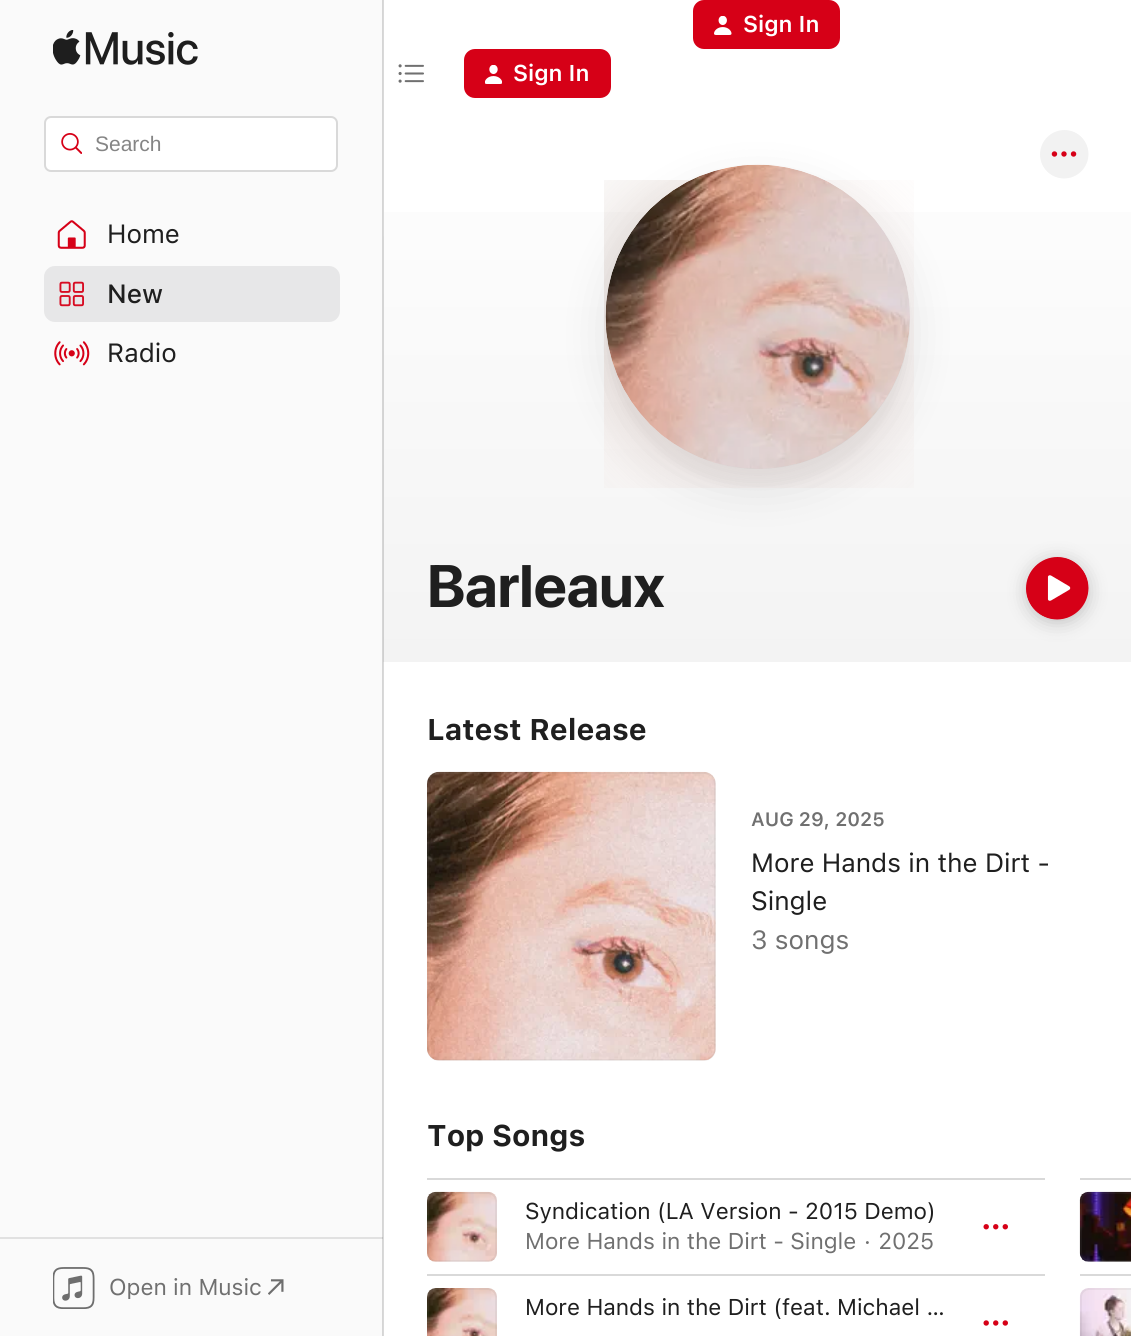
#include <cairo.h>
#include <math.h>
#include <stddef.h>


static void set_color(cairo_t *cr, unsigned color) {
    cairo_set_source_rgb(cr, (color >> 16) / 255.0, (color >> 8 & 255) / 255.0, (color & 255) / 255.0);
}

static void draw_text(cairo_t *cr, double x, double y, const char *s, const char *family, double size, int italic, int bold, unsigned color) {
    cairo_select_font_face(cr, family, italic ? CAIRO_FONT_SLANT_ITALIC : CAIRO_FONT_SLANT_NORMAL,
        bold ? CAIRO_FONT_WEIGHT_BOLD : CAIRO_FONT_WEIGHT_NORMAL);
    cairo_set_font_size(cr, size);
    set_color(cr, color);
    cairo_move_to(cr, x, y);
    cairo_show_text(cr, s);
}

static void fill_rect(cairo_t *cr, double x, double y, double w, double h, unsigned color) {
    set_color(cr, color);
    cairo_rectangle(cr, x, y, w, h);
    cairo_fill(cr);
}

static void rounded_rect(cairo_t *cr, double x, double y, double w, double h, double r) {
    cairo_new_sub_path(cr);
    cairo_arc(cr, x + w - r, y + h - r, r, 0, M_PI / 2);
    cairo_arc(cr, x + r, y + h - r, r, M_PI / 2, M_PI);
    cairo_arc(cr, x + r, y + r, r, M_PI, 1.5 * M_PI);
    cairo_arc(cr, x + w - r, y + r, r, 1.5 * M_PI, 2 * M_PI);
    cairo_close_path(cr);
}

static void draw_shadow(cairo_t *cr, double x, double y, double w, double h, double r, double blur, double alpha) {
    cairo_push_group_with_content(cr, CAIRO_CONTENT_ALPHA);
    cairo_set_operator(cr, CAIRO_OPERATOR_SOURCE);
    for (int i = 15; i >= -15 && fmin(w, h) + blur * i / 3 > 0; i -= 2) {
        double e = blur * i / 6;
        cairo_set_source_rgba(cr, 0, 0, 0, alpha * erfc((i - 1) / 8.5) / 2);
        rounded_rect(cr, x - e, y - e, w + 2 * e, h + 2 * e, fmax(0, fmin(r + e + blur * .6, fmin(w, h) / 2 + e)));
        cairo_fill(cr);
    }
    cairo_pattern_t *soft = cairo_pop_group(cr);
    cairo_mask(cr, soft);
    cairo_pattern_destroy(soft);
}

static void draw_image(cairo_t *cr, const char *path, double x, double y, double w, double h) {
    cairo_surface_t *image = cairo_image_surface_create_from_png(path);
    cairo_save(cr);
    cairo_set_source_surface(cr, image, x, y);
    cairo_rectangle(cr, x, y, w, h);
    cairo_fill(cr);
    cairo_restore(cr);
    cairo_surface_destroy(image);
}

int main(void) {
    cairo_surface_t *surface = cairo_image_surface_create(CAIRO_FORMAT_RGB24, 1131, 1336);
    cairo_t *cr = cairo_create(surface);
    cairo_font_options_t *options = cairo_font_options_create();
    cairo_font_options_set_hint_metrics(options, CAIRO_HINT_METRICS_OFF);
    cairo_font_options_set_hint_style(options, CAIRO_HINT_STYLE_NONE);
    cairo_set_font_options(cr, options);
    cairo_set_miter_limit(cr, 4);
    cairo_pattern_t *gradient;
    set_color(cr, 0xFFFFFF);
    cairo_paint(cr);
    fill_rect(cr, 383, 0, 1, 1336, 0xD9D9D9);
    set_color(cr, 0xD60017);
    rounded_rect(cr, 693, 0, 147, 49, 11);
    cairo_fill(cr);
    draw_image(cr, "assets/img1.png", 714, 16, 18, 19);
    draw_text(cr, 743, 32, "Sign In", "SF SemiBold", 22.75, 0, 0, 0xFFFFFF);
    draw_image(cr, "assets/img2.png", 398, 64, 26, 19);
    set_color(cr, 0xD60017);
    rounded_rect(cr, 464, 49, 147, 49, 11);
    cairo_fill(cr);
    draw_image(cr, "assets/img3.png", 485, 65, 17, 19);
    draw_text(cr, 513, 81, "Sign In", "SF SemiBold", 22.75, 0, 0, 0xFFFFFF);
    fill_rect(cr, 0, 0, 382, 1336, 0xFAFAFA);
    fill_rect(cr, 0, 1237, 383, 2, 0xE1E1E1);
    fill_rect(cr, 382, 0, 1, 1336, 0xD5D5D5);
    fill_rect(cr, 382, 1237, 1, 2, 0xC0C0C0);
    draw_image(cr, "assets/img4.png", 53, 30, 145, 35);
    set_color(cr, 0xFFFFFF);
    rounded_rect(cr, 45, 117, 292, 54, 6);
    cairo_fill_preserve(cr);
    set_color(cr, 0xD9D9D9);
    cairo_stroke(cr);
    draw_image(cr, "assets/img5.png", 61, 133, 21, 21);
    draw_text(cr, 95, 151, "Search", "Liberation Sans", 21, 0, 0, 0x858585);
    draw_image(cr, "assets/img6.png", 57, 220, 29, 29);
    draw_text(cr, 107, 243, "Home", "SF", 26.25, 0, 0, 0x1F1F1F);
    set_color(cr, 0xE7E7E8);
    rounded_rect(cr, 44, 266, 296, 56, 11);
    cairo_fill(cr);
    draw_image(cr, "assets/img7.png", 59, 281, 25, 26);
    draw_text(cr, 107, 303, "New", "SF Medium", 26.25, 0, 0, 0x1F1F1F);
    draw_image(cr, "assets/img8.png", 54, 341, 36, 25);
    draw_text(cr, 107, 362, "Radio", "SF", 26.25, 0, 0, 0x1F1F1F);
    draw_image(cr, "assets/img9.png", 53, 1267, 42, 42);
    draw_text(cr, 109, 1295, "Open in Music", "SF", 22.75, 0, 0, 0x707070);
    draw_image(cr, "assets/img10.png", 268, 1279, 16, 16);
    gradient = cairo_pattern_create_linear(758, 94, 758, 662);
    cairo_pattern_add_color_stop_rgba(gradient, 0, 1, 1, 1, 1);
    cairo_pattern_add_color_stop_rgba(gradient, 1, 0.953, 0.953, 0.953, 1);
    cairo_set_source(cr, gradient);
    cairo_pattern_destroy(gradient);
    cairo_rectangle(cr, 384, 212, 747, 450);
    cairo_fill(cr);
    set_color(cr, 0x000000);
    draw_shadow(cr, 606, 182, 304, 305, 152, 22, 0.1);
    draw_image(cr, "assets/img12.png", 604, 180, 310, 308);
    cairo_set_source_rgba(cr, 0.502, 0.502, 0.502, 0.04);
    cairo_new_path(cr);
    cairo_move_to(cr, 758, 182);
    cairo_curve_to(cr, 842, 182, 910, 250, 910, 334);
    cairo_line_to(cr, 910, 335);
    cairo_curve_to(cr, 910, 419, 842, 487, 758, 487);
    cairo_curve_to(cr, 674, 487, 606, 419, 606, 335);
    cairo_line_to(cr, 606, 334);
    cairo_curve_to(cr, 606, 250, 674, 182, 758, 182);
    cairo_close_path(cr);
    cairo_fill(cr);
    draw_image(cr, "assets/img11.png", 605, 164, 305, 305);
    cairo_set_source_rgba(cr, 0.502, 0.502, 0.502, 0.1);
    cairo_new_path(cr);
    cairo_move_to(cr, 758, 165);
    cairo_curve_to(cr, 842, 165, 910, 233, 910, 317);
    cairo_curve_to(cr, 910, 401, 842, 469, 758, 469);
    cairo_curve_to(cr, 674, 469, 606, 401, 606, 317);
    cairo_curve_to(cr, 606, 233, 674, 165, 758, 165);
    cairo_close_path(cr);
    cairo_fill(cr);
    gradient = cairo_pattern_create_linear(758, 94, 758, 662);
    cairo_pattern_add_color_stop_rgba(gradient, 0, 0.851, 0.851, 0.851, 1);
    cairo_pattern_add_color_stop_rgba(gradient, 1, 0.812, 0.812, 0.812, 1);
    cairo_set_source(cr, gradient);
    cairo_pattern_destroy(gradient);
    cairo_rectangle(cr, 383, 236, 1, 426);
    cairo_fill(cr);
    draw_image(cr, "assets/img13.png", 1040, 130, 49, 49);
    draw_text(cr, 427, 607, "Barleaux", "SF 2", 59.5, 0, 1, 0x1F1F1F);
    set_color(cr, 0x000000);
    draw_shadow(cr, 1026, 560, 63, 63, 31.5, 9, 0.2);
    draw_image(cr, "assets/img14.png", 1026, 557, 63, 63);
    draw_text(cr, 427, 740, "Latest Release", "SF", 29.75, 0, 1, 0x1F1F1F);
    draw_image(cr, "assets/img15.png", 427, 771, 289, 290);
    rounded_rect(cr, 428, 773, 287, 287, 11);
    cairo_set_source_rgba(cr, 0.502, 0.502, 0.502, 0.1);
    cairo_stroke(cr);
    draw_text(cr, 751, 826, "AUG 29, 2025", "SF SemiBold", 19.25, 0, 0, 0x707070);
    draw_text(cr, 751, 872, "More Hands in the Dirt -", "SF", 26.25, 0, 0, 0x1F1F1F);
    draw_text(cr, 751, 910, "Single", "SF", 26.25, 0, 0, 0x1F1F1F);
    draw_text(cr, 751, 949, "3 songs", "SF", 26.25, 0, 0, 0x707070);
    draw_text(cr, 427, 1146, "Top Songs", "SF", 29.75, 0, 1, 0x1F1F1F);
    fill_rect(cr, 427, 1178, 618, 2, 0xD9D9D9);
    draw_image(cr, "assets/img16.png", 427, 1191, 70, 71);
    rounded_rect(cr, 428, 1193, 68, 68, 8);
    cairo_set_source_rgba(cr, 0.502, 0.502, 0.502, 0.1);
    cairo_stroke(cr);
    draw_text(cr, 525, 1219, "Syndication (LA Version - 2015 Demo)", "SF", 22.75, 0, 0, 0x1F1F1F);
    draw_text(cr, 525, 1249, "More Hands in the Dirt - Single · 2025", "SF", 22.75, 0, 0, 0x707070);
    draw_image(cr, "assets/img17.png", 983, 1224, 25, 6);
    fill_rect(cr, 1080, 1178, 51, 2, 0xD9D9D9);
    draw_image(cr, "assets/img18.png", 1079, 1191, 52, 71);
    rounded_rect(cr, 1081, 1193, 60, 68, 8);
    cairo_set_source_rgba(cr, 0.502, 0.502, 0.502, 0.1);
    cairo_stroke(cr);
    fill_rect(cr, 427, 1274, 618, 2, 0xD9D9D9);
    draw_image(cr, "assets/img19.png", 427, 1288, 70, 48);
    rounded_rect(cr, 428, 1289, 68, 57, 8);
    cairo_set_source_rgba(cr, 0.502, 0.502, 0.502, 0.1);
    cairo_stroke(cr);
    draw_text(cr, 525, 1315, "More Hands in the Dirt (feat. Michael …", "SF", 22.75, 0, 0, 0x1F1F1F);
    draw_image(cr, "assets/img20.png", 983, 1320, 25, 6);
    fill_rect(cr, 1080, 1274, 51, 2, 0xD9D9D9);
    draw_image(cr, "assets/img21.png", 1079, 1288, 52, 48);
    rounded_rect(cr, 1081, 1289, 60, 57, 8);
    cairo_set_source_rgba(cr, 0.502, 0.502, 0.502, 0.1);
    cairo_stroke(cr);
    cairo_surface_write_to_png(surface, "output.png");
    cairo_font_options_destroy(options);
    cairo_destroy(cr);
    cairo_surface_destroy(surface);
    return 0;
}
